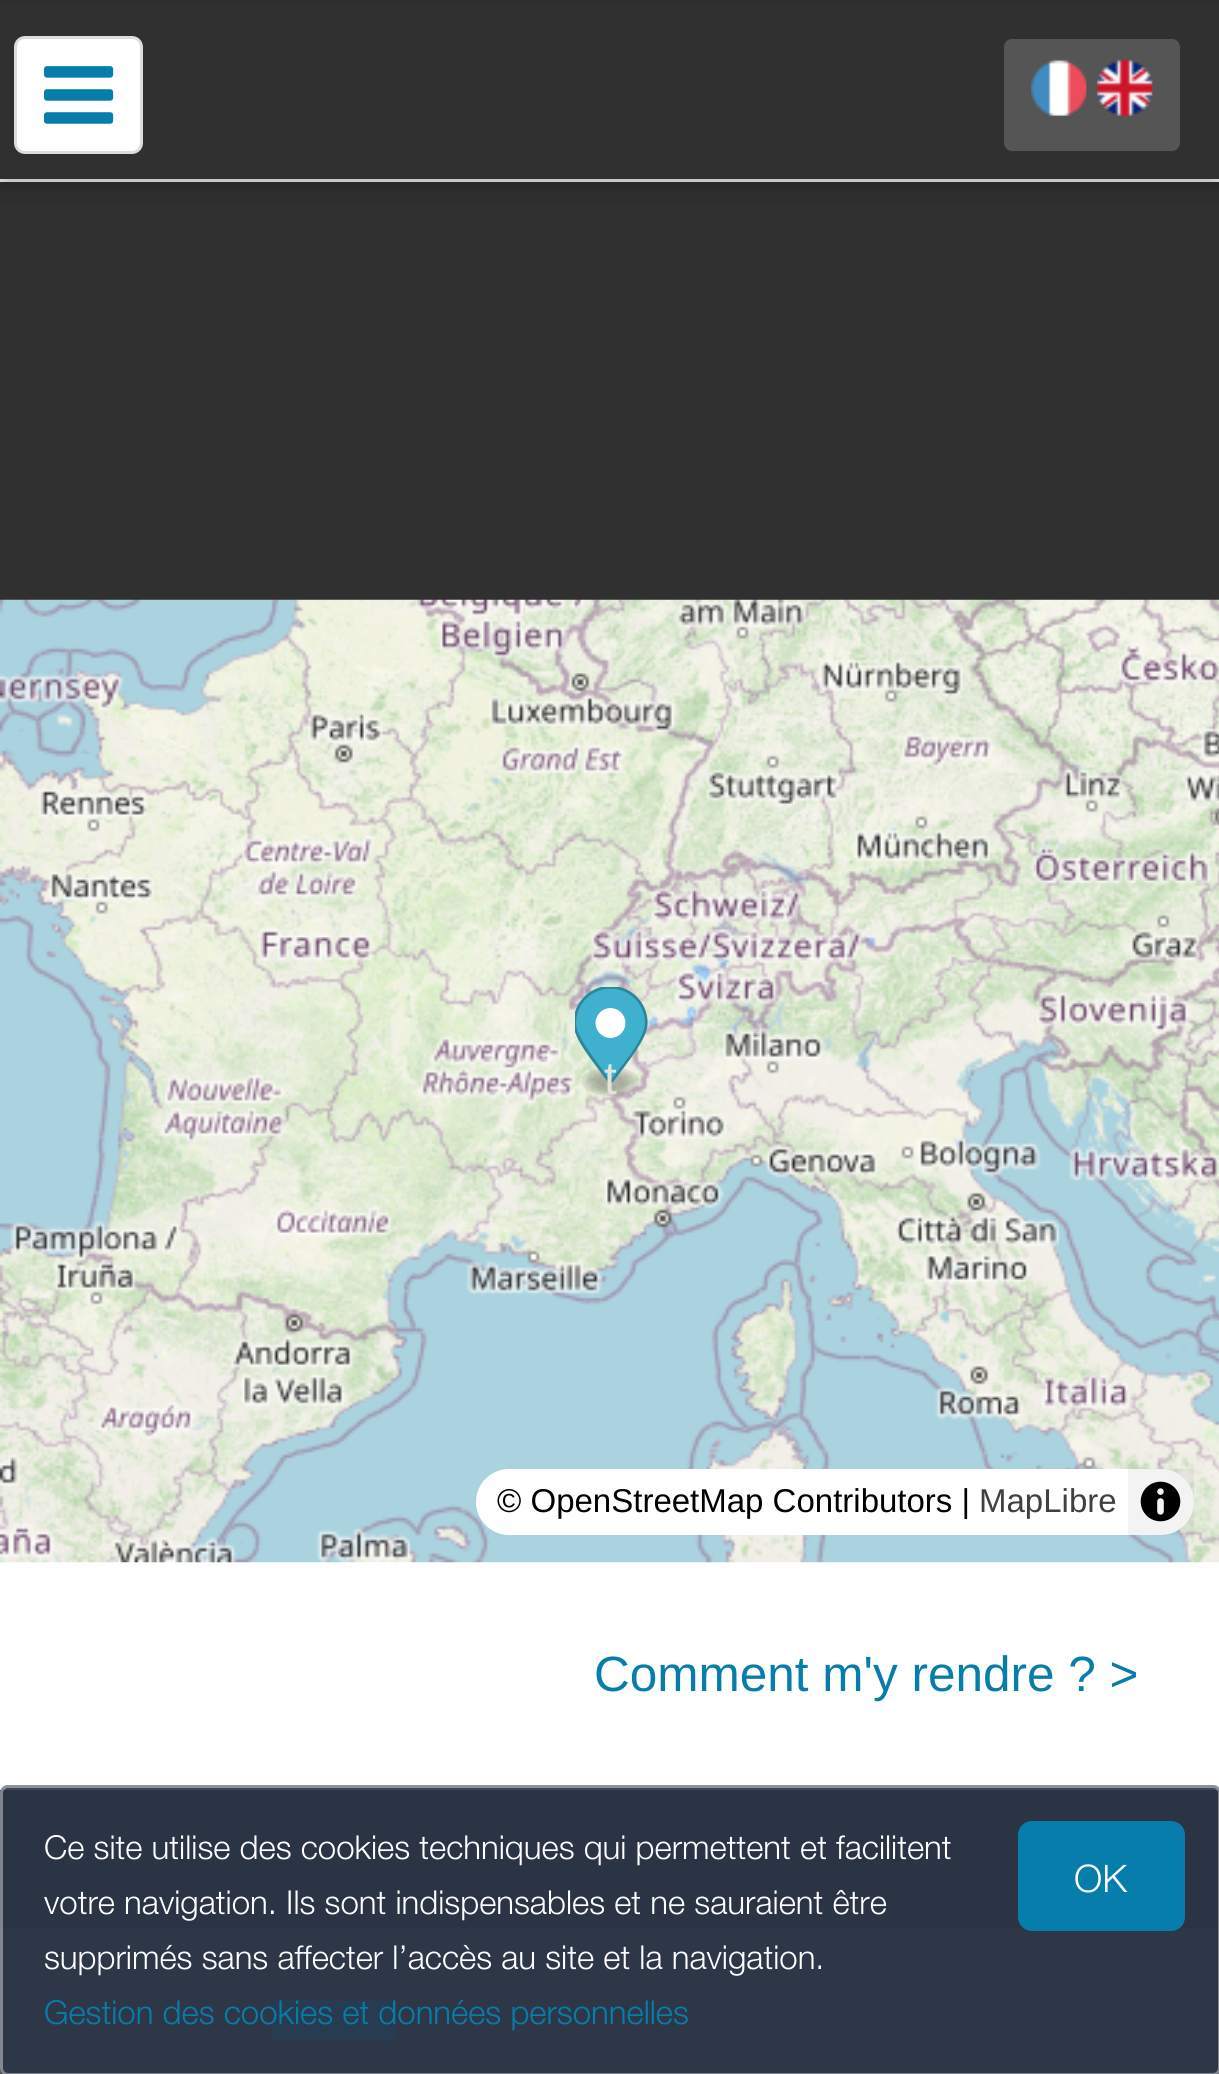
#include <cairo.h>
#include <math.h>
#include <stddef.h>


static void set_color(cairo_t *cr, unsigned color) {
    cairo_set_source_rgb(cr, (color >> 16) / 255.0, (color >> 8 & 255) / 255.0, (color & 255) / 255.0);
}

static void draw_text(cairo_t *cr, double x, double y, const char *s, const char *family, double size, int italic, int bold, unsigned color) {
    cairo_select_font_face(cr, family, italic ? CAIRO_FONT_SLANT_ITALIC : CAIRO_FONT_SLANT_NORMAL,
        bold ? CAIRO_FONT_WEIGHT_BOLD : CAIRO_FONT_WEIGHT_NORMAL);
    cairo_set_font_size(cr, size);
    set_color(cr, color);
    cairo_move_to(cr, x, y);
    cairo_show_text(cr, s);
}

static void fill_rect(cairo_t *cr, double x, double y, double w, double h, unsigned color) {
    set_color(cr, color);
    cairo_rectangle(cr, x, y, w, h);
    cairo_fill(cr);
}

static void rounded_rect(cairo_t *cr, double x, double y, double w, double h, double r) {
    cairo_new_sub_path(cr);
    cairo_arc(cr, x + w - r, y + h - r, r, 0, M_PI / 2);
    cairo_arc(cr, x + r, y + h - r, r, M_PI / 2, M_PI);
    cairo_arc(cr, x + r, y + r, r, M_PI, 1.5 * M_PI);
    cairo_arc(cr, x + w - r, y + r, r, 1.5 * M_PI, 2 * M_PI);
    cairo_close_path(cr);
}

static void draw_shadow(cairo_t *cr, double x, double y, double w, double h, double r, double blur, double alpha) {
    cairo_push_group_with_content(cr, CAIRO_CONTENT_ALPHA);
    cairo_set_operator(cr, CAIRO_OPERATOR_SOURCE);
    for (int i = 15; i >= -15 && fmin(w, h) + blur * i / 3 > 0; i -= 2) {
        double e = blur * i / 6;
        cairo_set_source_rgba(cr, 0, 0, 0, alpha * erfc((i - 1) / 8.5) / 2);
        rounded_rect(cr, x - e, y - e, w + 2 * e, h + 2 * e, fmax(0, fmin(r + e + blur * .6, fmin(w, h) / 2 + e)));
        cairo_fill(cr);
    }
    cairo_pattern_t *soft = cairo_pop_group(cr);
    cairo_mask(cr, soft);
    cairo_pattern_destroy(soft);
}

static void draw_image(cairo_t *cr, const char *path, double x, double y, double w, double h) {
    cairo_surface_t *image = cairo_image_surface_create_from_png(path);
    cairo_save(cr);
    cairo_set_source_surface(cr, image, x, y);
    cairo_rectangle(cr, x, y, w, h);
    cairo_fill(cr);
    cairo_restore(cr);
    cairo_surface_destroy(image);
}

int main(void) {
    cairo_surface_t *surface = cairo_image_surface_create(CAIRO_FORMAT_RGB24, 1219, 2074);
    cairo_t *cr = cairo_create(surface);
    cairo_font_options_t *options = cairo_font_options_create();
    cairo_font_options_set_hint_metrics(options, CAIRO_HINT_METRICS_OFF);
    cairo_font_options_set_hint_style(options, CAIRO_HINT_STYLE_NONE);
    cairo_set_font_options(cr, options);
    cairo_set_miter_limit(cr, 4);
    set_color(cr, 0x303030);
    cairo_paint(cr);
    fill_rect(cr, 0, 179, 1219, 3, 0xEEEEEE);
    set_color(cr, 0x000000);
    draw_shadow(cr, 0, 11, 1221, 179, 0, 11, 0.2);
    fill_rect(cr, 0, 4, 1219, 175, 0x303030);
    set_color(cr, 0xFFFFFF);
    rounded_rect(cr, 15.5, 37.5, 126, 115, 9.5);
    cairo_fill_preserve(cr);
    set_color(cr, 0xDDDDDD);
    cairo_set_line_width(cr, 3);
    cairo_stroke(cr);
    draw_image(cr, "assets/img1.png", 44, 66, 70, 58);
    set_color(cr, 0x555555);
    rounded_rect(cr, 1004, 39, 176, 112, 8);
    cairo_fill(cr);
    draw_image(cr, "assets/img2.png", 1031, 59, 56, 57);
    draw_image(cr, "assets/img3.png", 1097, 59, 56, 57);
    fill_rect(cr, 0, 1562, 1219, 228, 0xFFFFFF);
    draw_image(cr, "assets/img4.png", 0, 599, 1219, 964);
    draw_image(cr, "assets/img5.png", 575, 987, 73, 109);
    draw_text(cr, 604, 1094, "t", "Liberation Sans", 46, 0, 0, 0xE1E4DA);
    set_color(cr, 0xFFFFFF);
    rounded_rect(cr, 476, 1469, 718, 66, 33);
    cairo_fill(cr);
    draw_text(cr, 497, 1512, "© OpenStreetMap Contributors |", "Liberation Sans", 33, 0, 0, 0x000000);
    draw_text(cr, 979, 1512, "MapLibre", "Liberation Sans", 33, 0, 0, 0x404040);
    cairo_set_source_rgba(cr, 0, 0, 0, 0.05);
    cairo_rectangle(cr, 1128, 1469, 66, 66);
    cairo_fill(cr);
    draw_image(cr, "assets/img6.png", 1140, 1481, 41, 41);
    draw_text(cr, 594, 1691, "Comment m'y rendre ? >", "Liberation Sans", 49.5, 0, 0, 0x067DAB);
    fill_rect(cr, 0, 1928, 1219, 146, 0x555555);
    set_color(cr, 0x067DAB);
    rounded_rect(cr, 272, 1999, 124, 42, 6);
    cairo_fill(cr);
    cairo_set_source_rgba(cr, 0.169, 0.208, 0.278, 0.9);
    rounded_rect(cr, 0, 1785, 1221, 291, 8);
    cairo_fill(cr);
    rounded_rect(cr, 1.5, 1786.5, 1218, 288, 6.5);
    cairo_set_source_rgba(cr, 1, 1, 1, 0.4);
    cairo_stroke(cr);
    draw_text(cr, 44, 1859, "Ce site utilise des cookies techniques qui permettent et facilitent", "Helvetica Neue Light", 33, 0, 0, 0xFFFFFF);
    set_color(cr, 0x067DAB);
    rounded_rect(cr, 1018, 1821, 167, 110, 14);
    cairo_fill(cr);
    draw_text(cr, 1074, 1892, "OK", "Helvetica Neue Light", 38, 0, 0, 0xFFFFFF);
    draw_text(cr, 44, 1914, "votre navigation. Ils sont indispensables et ne sauraient être", "Helvetica Neue Light", 33, 0, 0, 0xFFFFFF);
    draw_text(cr, 44, 1969, "supprimés sans affecter l’accès au site et la navigation.", "Helvetica Neue Light", 33, 0, 0, 0xFFFFFF);
    draw_text(cr, 44, 2024, "Gestion des cookies et données personnelles", "Helvetica Neue Light", 33, 0, 0, 0x067DAB);
    cairo_surface_write_to_png(surface, "output.png");
    cairo_font_options_destroy(options);
    cairo_destroy(cr);
    cairo_surface_destroy(surface);
    return 0;
}
